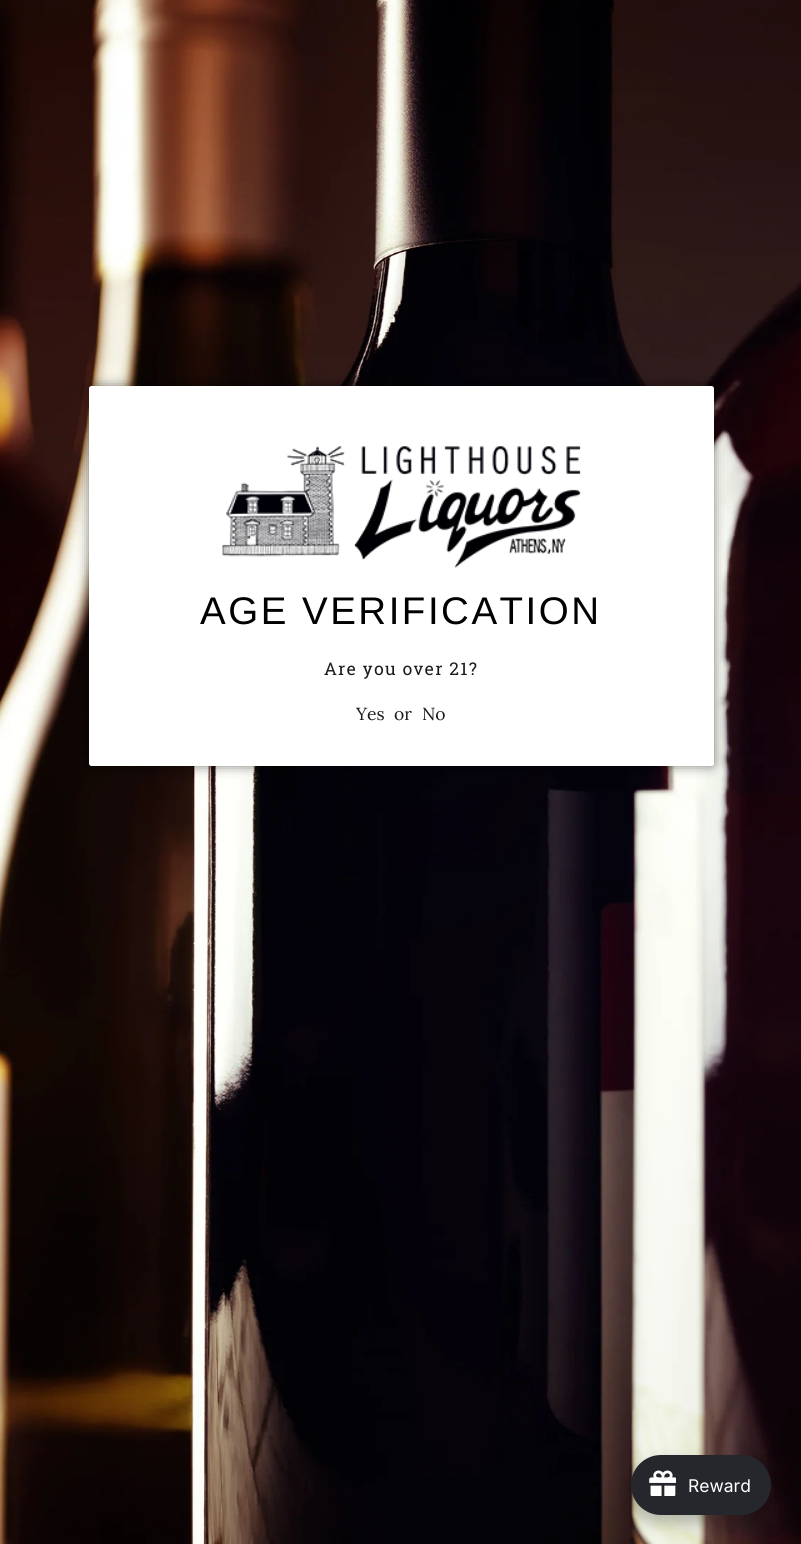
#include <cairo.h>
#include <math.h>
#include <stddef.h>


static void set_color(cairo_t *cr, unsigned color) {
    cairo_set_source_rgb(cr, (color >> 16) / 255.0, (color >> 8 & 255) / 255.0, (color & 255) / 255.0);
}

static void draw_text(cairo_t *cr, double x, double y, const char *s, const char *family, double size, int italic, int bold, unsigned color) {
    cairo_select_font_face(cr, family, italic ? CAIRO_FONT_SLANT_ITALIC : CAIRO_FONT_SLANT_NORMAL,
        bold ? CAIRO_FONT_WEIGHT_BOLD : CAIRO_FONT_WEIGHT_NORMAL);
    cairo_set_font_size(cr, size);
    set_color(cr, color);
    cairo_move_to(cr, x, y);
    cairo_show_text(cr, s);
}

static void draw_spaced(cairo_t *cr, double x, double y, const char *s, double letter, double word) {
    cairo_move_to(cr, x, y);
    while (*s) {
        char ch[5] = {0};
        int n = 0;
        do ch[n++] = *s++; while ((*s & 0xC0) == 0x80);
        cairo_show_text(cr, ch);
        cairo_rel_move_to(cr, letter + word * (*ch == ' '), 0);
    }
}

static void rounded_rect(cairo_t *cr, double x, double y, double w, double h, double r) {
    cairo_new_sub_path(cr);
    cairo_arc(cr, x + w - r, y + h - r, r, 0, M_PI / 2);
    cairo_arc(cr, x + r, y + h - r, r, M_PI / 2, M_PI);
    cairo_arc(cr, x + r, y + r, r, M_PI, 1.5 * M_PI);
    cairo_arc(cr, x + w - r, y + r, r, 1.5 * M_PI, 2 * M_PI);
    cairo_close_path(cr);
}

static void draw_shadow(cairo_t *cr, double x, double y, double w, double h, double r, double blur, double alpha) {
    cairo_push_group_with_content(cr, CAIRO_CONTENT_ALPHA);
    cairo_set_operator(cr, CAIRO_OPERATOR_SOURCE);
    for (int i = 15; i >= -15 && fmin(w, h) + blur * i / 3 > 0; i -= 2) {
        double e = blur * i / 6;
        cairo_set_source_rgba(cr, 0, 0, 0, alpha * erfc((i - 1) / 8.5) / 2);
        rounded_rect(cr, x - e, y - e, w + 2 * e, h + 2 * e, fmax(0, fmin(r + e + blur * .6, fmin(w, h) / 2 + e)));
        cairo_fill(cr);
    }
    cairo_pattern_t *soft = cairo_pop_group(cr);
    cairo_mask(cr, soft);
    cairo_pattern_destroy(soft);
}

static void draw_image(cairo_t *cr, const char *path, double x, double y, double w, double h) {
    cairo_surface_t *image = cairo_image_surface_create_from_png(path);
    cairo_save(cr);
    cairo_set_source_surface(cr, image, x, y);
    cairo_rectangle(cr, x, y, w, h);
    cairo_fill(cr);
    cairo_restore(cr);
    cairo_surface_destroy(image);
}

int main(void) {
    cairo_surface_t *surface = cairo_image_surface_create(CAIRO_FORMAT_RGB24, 801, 1544);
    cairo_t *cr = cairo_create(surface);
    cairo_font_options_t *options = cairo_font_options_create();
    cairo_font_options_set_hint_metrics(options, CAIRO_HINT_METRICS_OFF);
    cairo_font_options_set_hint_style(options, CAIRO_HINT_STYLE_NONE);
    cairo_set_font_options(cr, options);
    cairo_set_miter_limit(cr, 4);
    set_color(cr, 0xFFFFFF);
    cairo_paint(cr);
    draw_image(cr, "assets/img1.png", 0, 0, 801, 1544);
    set_color(cr, 0x000000);
    draw_shadow(cr, 89, 386, 625, 380, 2.5, 6, 0.5);
    set_color(cr, 0xFFFFFF);
    rounded_rect(cr, 89, 386, 625, 380, 2.5);
    cairo_fill(cr);
    draw_image(cr, "assets/img2.png", 222, 446, 359, 122);
    cairo_select_font_face(cr, "Liberation Sans", CAIRO_FONT_SLANT_NORMAL, CAIRO_FONT_WEIGHT_NORMAL);
    cairo_set_font_size(cr, 38.5);
    set_color(cr, 0x000000);
    draw_spaced(cr, 200, 624, "AGE VERIFICATION", 2.5, 0);
    cairo_select_font_face(cr, "Roboto Slab", CAIRO_FONT_SLANT_NORMAL, CAIRO_FONT_WEIGHT_NORMAL);
    cairo_set_font_size(cr, 17.5);
    set_color(cr, 0x1C1B1B);
    draw_spaced(cr, 324, 675, "Are you over 21?", 1.25, 0);
    draw_text(cr, 356, 720, "Yes", "Lora", 17.5, 0, 0, 0x1C1B1B);
    draw_text(cr, 394, 720, "or", "Lora", 17.5, 0, 0, 0x1C1B1B);
    draw_text(cr, 422, 720, "No", "Lora", 17.5, 0, 0, 0x1C1B1B);
    set_color(cr, 0x000000);
    draw_shadow(cr, 631, 1463, 140, 60, 30, 7.5, 0.25);
    set_color(cr, 0x25272C);
    rounded_rect(cr, 631, 1455, 140, 60, 30);
    cairo_fill(cr);
    draw_image(cr, "assets/img3.png", 649, 1470, 27, 26);
    draw_text(cr, 688, 1492, "Reward", "Inter", 17.5, 0, 0, 0xFFFFFF);
    cairo_surface_write_to_png(surface, "output.png");
    cairo_font_options_destroy(options);
    cairo_destroy(cr);
    cairo_surface_destroy(surface);
    return 0;
}
